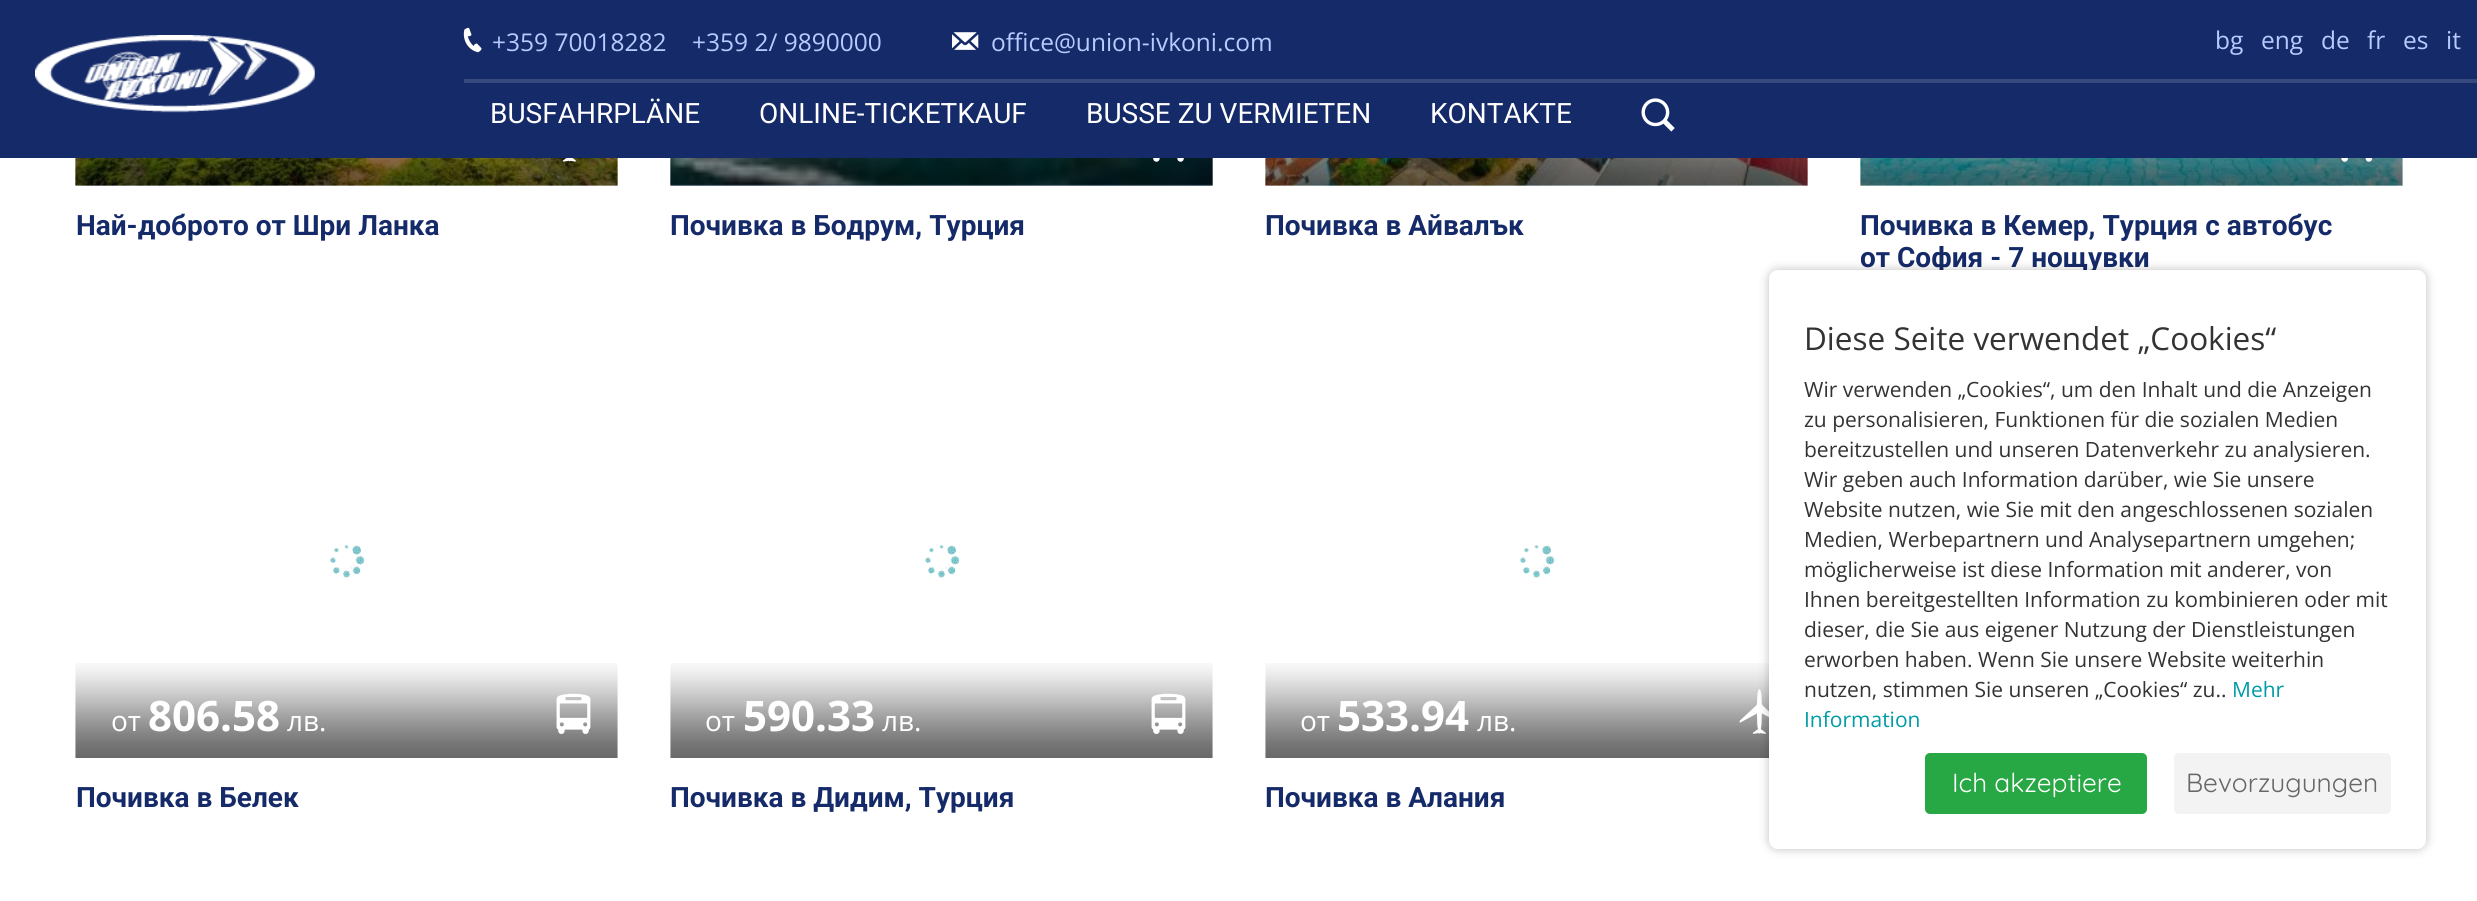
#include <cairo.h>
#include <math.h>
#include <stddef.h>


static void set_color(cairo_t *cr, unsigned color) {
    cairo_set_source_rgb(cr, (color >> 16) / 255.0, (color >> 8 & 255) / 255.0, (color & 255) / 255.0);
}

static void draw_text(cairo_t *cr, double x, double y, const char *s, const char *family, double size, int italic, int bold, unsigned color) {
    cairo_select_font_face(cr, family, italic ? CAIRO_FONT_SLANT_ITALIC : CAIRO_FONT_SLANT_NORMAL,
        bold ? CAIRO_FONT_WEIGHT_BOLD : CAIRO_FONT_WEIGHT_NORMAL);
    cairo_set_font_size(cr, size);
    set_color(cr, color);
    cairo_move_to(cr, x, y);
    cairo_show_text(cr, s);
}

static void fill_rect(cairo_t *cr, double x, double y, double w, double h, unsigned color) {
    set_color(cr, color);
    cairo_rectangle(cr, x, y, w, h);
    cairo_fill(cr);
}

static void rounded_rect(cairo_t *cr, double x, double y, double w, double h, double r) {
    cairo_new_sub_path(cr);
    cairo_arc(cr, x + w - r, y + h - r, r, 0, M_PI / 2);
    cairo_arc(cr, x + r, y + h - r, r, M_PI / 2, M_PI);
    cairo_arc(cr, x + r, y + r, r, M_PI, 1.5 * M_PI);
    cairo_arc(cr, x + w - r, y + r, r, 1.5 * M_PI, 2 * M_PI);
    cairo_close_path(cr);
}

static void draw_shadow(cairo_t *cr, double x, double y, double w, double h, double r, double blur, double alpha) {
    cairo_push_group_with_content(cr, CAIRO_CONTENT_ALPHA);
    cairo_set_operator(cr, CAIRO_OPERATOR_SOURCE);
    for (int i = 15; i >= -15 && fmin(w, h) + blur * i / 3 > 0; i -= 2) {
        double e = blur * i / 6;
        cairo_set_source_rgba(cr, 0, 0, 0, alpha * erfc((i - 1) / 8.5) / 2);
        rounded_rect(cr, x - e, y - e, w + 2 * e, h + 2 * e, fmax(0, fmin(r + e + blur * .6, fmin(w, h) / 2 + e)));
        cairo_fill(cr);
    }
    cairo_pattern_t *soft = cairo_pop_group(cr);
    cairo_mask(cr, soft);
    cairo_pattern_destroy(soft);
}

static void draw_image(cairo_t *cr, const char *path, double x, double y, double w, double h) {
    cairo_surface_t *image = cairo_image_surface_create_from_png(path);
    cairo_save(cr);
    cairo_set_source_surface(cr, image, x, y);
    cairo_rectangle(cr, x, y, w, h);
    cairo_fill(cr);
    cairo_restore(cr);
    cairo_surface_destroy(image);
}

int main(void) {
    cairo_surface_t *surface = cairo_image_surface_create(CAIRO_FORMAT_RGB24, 2477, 901);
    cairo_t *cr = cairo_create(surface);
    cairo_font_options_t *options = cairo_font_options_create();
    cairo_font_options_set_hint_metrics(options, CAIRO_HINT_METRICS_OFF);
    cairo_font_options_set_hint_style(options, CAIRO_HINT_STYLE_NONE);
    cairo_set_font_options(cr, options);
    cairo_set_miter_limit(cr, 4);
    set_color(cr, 0xFFFFFF);
    cairo_paint(cr);
    draw_text(cr, 1860, 267, "от София - 7 нощувки", "Roboto", 28, 0, 1, 0x152A69);
    cairo_rectangle(cr, 1859, -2, 545, 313);
    set_color(cr, 0xFFFFFF);
    cairo_set_line_width(cr, 4);
    cairo_stroke(cr);
    fill_rect(cr, 0, 0, 2477, 158, 0x152A69);
    draw_image(cr, "assets/img1.png", 35, 35, 280, 78);
    fill_rect(cr, 464, 79, 2013, 4, 0x36487E);
    draw_image(cr, "assets/img2.png", 463, 27, 19, 26);
    draw_text(cr, 492, 51, "+359 70018282", "Open Sans", 24.5, 0, 0, 0xB7CBFF);
    draw_text(cr, 692, 51, "+359 2/ 9890000", "Open Sans", 24.5, 0, 0, 0xB7CBFF);
    draw_image(cr, "assets/img3.png", 952, 32, 27, 18);
    draw_text(cr, 991, 51, "office@union-ivkoni.com", "Open Sans", 24.5, 0, 0, 0xB7CBFF);
    draw_text(cr, 2215, 49, "bg", "Open Sans", 24.5, 0, 0, 0xB7CBFF);
    draw_text(cr, 2261, 49, "eng", "Open Sans", 24.5, 0, 0, 0xB7CBFF);
    draw_text(cr, 2321, 49, "de", "Open Sans", 24.5, 0, 0, 0xB7CBFF);
    draw_text(cr, 2367, 49, "fr", "Open Sans", 24.5, 0, 0, 0xB7CBFF);
    draw_text(cr, 2403, 49, "es", "Open Sans", 24.5, 0, 0, 0xB7CBFF);
    draw_text(cr, 2446, 49, "it", "Open Sans", 24.5, 0, 0, 0xB7CBFF);
    draw_text(cr, 490, 123, "BUSFAHRPLÄNE", "Roboto", 28, 0, 0, 0xFFFFFF);
    draw_text(cr, 759, 123, "ONLINE-TICKETKAUF", "Roboto", 28, 0, 0, 0xFFFFFF);
    draw_text(cr, 1086, 123, "BUSSE ZU VERMIETEN", "Roboto", 28, 0, 0, 0xFFFFFF);
    draw_text(cr, 1430, 123, "KONTAKTE", "Roboto", 28, 0, 0, 0xFFFFFF);
    draw_image(cr, "assets/img4.png", 1641, 98, 34, 34);
    draw_image(cr, "assets/img5.png", 75, 158, 543, 28);
    draw_image(cr, "assets/img6.png", 75, 158, 543, 28);
    draw_image(cr, "assets/img7.png", 562, 158, 14, 4);
    draw_text(cr, 76, 235, "Най-доброто от Шри Ланка", "Roboto", 28, 0, 1, 0x152A69);
    draw_image(cr, "assets/img8.png", 670, 158, 543, 28);
    draw_image(cr, "assets/img9.png", 670, 158, 543, 28);
    draw_image(cr, "assets/img10.png", 1153, 158, 31, 4);
    draw_text(cr, 670, 235, "Почивка в Бодрум, Турция", "Roboto", 28, 0, 1, 0x152A69);
    draw_image(cr, "assets/img11.png", 1265, 158, 543, 28);
    draw_image(cr, "assets/img12.png", 1265, 158, 543, 28);
    draw_text(cr, 1265, 235, "Почивка в Айвалък", "Roboto", 28, 0, 1, 0x152A69);
    draw_image(cr, "assets/img13.png", 1860, 158, 543, 28);
    draw_image(cr, "assets/img14.png", 1860, 158, 543, 28);
    draw_image(cr, "assets/img15.png", 2341, 158, 31, 4);
    draw_text(cr, 1860, 235, "Почивка в Кемер, Турция с автобус", "Roboto", 28, 0, 1, 0x152A69);
    draw_image(cr, "assets/img16.png", 330, 545, 35, 33);
    draw_image(cr, "assets/img17.png", 75, 663, 543, 95);
    draw_text(cr, 111, 731, "от", "Open Sans", 28, 0, 0, 0xFFFFFF);
    draw_text(cr, 148, 731, "806.58", "Open Sans", 42, 0, 1, 0xFFFFFF);
    draw_text(cr, 287, 731, "лв.", "Open Sans", 28, 0, 0, 0xFFFFFF);
    draw_image(cr, "assets/img18.png", 556, 693, 35, 41);
    draw_text(cr, 76, 807, "Почивка в Белек", "Roboto", 28, 0, 1, 0x152A69);
    draw_image(cr, "assets/img16.png", 925, 545, 35, 33);
    draw_image(cr, "assets/img17.png", 670, 663, 543, 95);
    draw_text(cr, 705, 731, "от", "Open Sans", 28, 0, 0, 0xFFFFFF);
    draw_text(cr, 743, 731, "590.33", "Open Sans", 42, 0, 1, 0xFFFFFF);
    draw_text(cr, 882, 731, "лв.", "Open Sans", 28, 0, 0, 0xFFFFFF);
    draw_image(cr, "assets/img18.png", 1151, 693, 35, 41);
    draw_text(cr, 670, 807, "Почивка в Дидим, Турция", "Roboto", 28, 0, 1, 0x152A69);
    draw_image(cr, "assets/img16.png", 1520, 545, 35, 33);
    draw_image(cr, "assets/img19.png", 1265, 663, 504, 95);
    draw_text(cr, 1300, 731, "от", "Open Sans", 28, 0, 0, 0xFFFFFF);
    draw_text(cr, 1337, 731, "533.94", "Open Sans", 42, 0, 1, 0xFFFFFF);
    draw_text(cr, 1477, 731, "лв.", "Open Sans", 28, 0, 0, 0xFFFFFF);
    draw_image(cr, "assets/img20.png", 1739, 689, 30, 45);
    draw_text(cr, 1265, 807, "Почивка в Алания", "Roboto", 28, 0, 1, 0x152A69);
    set_color(cr, 0x000000);
    draw_shadow(cr, 1769, 270, 657, 579, 9, 5, 0.25);
    set_color(cr, 0xFFFFFF);
    rounded_rect(cr, 1769, 270, 657, 579, 9);
    cairo_fill(cr);
    draw_text(cr, 1804, 350, "Diese Seite verwendet „Cookies“", "Open Sans", 31.5, 0, 0, 0x333333);
    draw_text(cr, 1804, 397, "Wir verwenden „Cookies“, um den Inhalt und die Anzeigen", "Open Sans", 21, 0, 0, 0x333333);
    draw_text(cr, 1804, 427, "zu personalisieren, Funktionen für die sozialen Medien", "Open Sans", 21, 0, 0, 0x333333);
    draw_text(cr, 1804, 457, "bereitzustellen und unseren Datenverkehr zu analysieren.", "Open Sans", 21, 0, 0, 0x333333);
    draw_text(cr, 1804, 487, "Wir geben auch Information darüber, wie Sie unsere", "Open Sans", 21, 0, 0, 0x333333);
    draw_text(cr, 1804, 517, "Website nutzen, wie Sie mit den angeschlossenen sozialen", "Open Sans", 21, 0, 0, 0x333333);
    draw_text(cr, 1804, 547, "Medien, Werbepartnern und Analysepartnern umgehen;", "Open Sans", 21, 0, 0, 0x333333);
    draw_text(cr, 1804, 577, "möglicherweise ist diese Information mit anderer, von", "Open Sans", 21, 0, 0, 0x333333);
    draw_text(cr, 1804, 607, "Ihnen bereitgestellten Information zu kombinieren oder mit", "Open Sans", 21, 0, 0, 0x333333);
    draw_text(cr, 1804, 637, "dieser, die Sie aus eigener Nutzung der Dienstleistungen", "Open Sans", 21, 0, 0, 0x333333);
    draw_text(cr, 1804, 667, "erworben haben. Wenn Sie unsere Website weiterhin", "Open Sans", 21, 0, 0, 0x333333);
    draw_text(cr, 1804, 697, "nutzen, stimmen Sie unseren „Cookies“ zu..", "Open Sans", 21, 0, 0, 0x333333);
    draw_text(cr, 2232, 697, "Mehr", "Open Sans", 21, 0, 0, 0x009CA6);
    draw_text(cr, 1804, 727, "Information", "Open Sans", 21, 0, 0, 0x009CA6);
    set_color(cr, 0x28A745);
    rounded_rect(cr, 1925, 753, 222, 61, 5);
    cairo_fill(cr);
    draw_text(cr, 1952, 792, "Ich akzeptiere", "Quicksand", 26.25, 0, 0, 0xFFFFFF);
    set_color(cr, 0xF3F3F3);
    rounded_rect(cr, 2174, 753, 217, 61, 5);
    cairo_fill(cr);
    draw_text(cr, 2186, 792, "Bevorzugungen", "Quicksand", 26.25, 0, 0, 0x666666);
    cairo_surface_write_to_png(surface, "output.png");
    cairo_font_options_destroy(options);
    cairo_destroy(cr);
    cairo_surface_destroy(surface);
    return 0;
}
